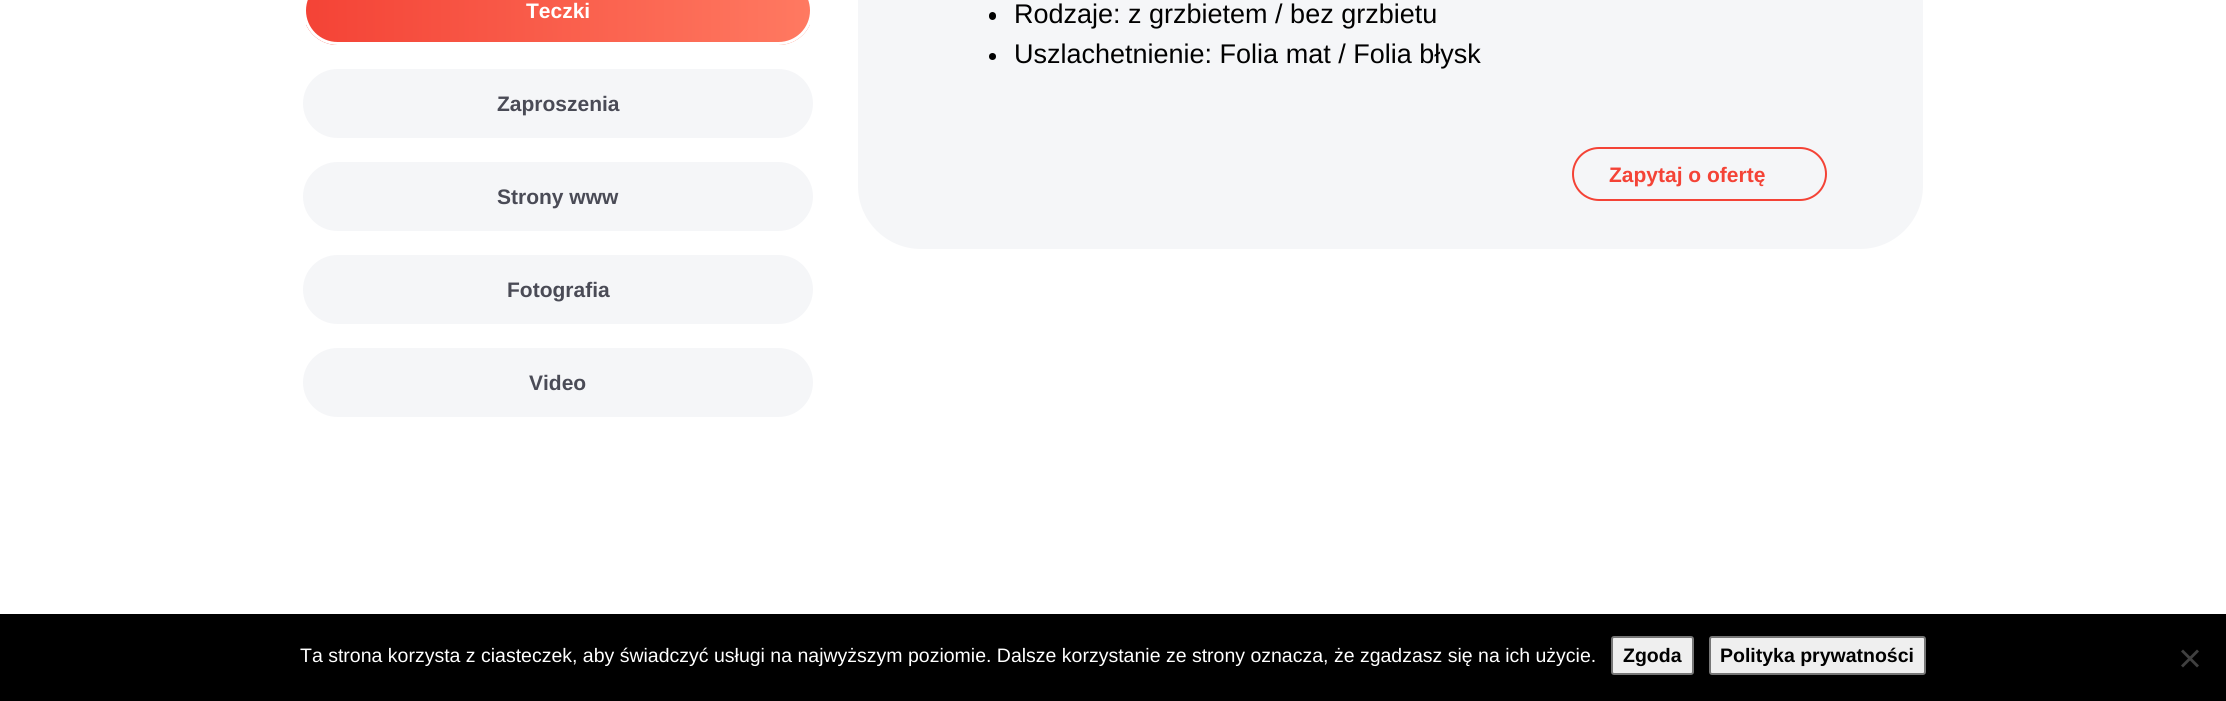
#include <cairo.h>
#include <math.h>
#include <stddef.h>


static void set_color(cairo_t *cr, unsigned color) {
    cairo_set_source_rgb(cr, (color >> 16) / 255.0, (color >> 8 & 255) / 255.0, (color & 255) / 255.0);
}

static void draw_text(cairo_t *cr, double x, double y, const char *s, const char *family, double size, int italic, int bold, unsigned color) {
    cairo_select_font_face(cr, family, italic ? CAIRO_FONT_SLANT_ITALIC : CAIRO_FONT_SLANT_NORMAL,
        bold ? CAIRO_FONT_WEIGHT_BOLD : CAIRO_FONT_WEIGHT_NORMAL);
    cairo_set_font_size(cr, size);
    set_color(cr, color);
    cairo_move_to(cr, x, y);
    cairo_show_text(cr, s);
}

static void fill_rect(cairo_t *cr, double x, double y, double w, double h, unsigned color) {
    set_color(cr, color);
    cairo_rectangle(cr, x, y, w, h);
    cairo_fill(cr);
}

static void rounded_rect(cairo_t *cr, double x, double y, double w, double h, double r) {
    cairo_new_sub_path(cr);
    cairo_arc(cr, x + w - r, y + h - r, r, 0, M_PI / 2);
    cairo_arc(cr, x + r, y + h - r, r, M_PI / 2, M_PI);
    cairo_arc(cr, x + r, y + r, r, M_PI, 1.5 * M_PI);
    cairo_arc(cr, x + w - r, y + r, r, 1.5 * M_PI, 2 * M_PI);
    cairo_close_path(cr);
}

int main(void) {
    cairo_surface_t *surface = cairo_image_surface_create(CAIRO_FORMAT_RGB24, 2226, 701);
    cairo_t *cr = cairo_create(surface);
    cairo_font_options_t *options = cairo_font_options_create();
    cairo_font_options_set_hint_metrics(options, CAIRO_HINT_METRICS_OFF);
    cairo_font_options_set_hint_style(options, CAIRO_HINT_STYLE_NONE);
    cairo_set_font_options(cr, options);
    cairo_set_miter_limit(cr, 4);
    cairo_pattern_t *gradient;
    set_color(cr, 0xFFFFFF);
    cairo_paint(cr);
    cairo_save(cr);
    rounded_rect(cr, 303, -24, 510, 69, 34.5);
    cairo_clip(cr);
    gradient = cairo_pattern_create_linear(306, 11, 810, 10);
    cairo_pattern_add_color_stop_rgba(gradient, 0, 0.957, 0.263, 0.212, 1);
    cairo_pattern_add_color_stop_rgba(gradient, 1, 1, 0.475, 0.38, 1);
    cairo_set_source(cr, gradient);
    cairo_pattern_destroy(gradient);
    cairo_rectangle(cr, 306, 0, 504, 45);
    cairo_fill(cr);
    cairo_restore(cr);
    rounded_rect(cr, 304.5, -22.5, 507, 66, 33);
    set_color(cr, 0xFFFFFF);
    cairo_set_line_width(cr, 3);
    cairo_stroke(cr);
    draw_text(cr, 526, 18, "Teczki", "Liberation Sans", 21, 0, 1, 0xFFFFFF);
    set_color(cr, 0xF5F6F8);
    rounded_rect(cr, 304.5, 70.5, 507, 66, 33);
    cairo_fill_preserve(cr);
    cairo_stroke(cr);
    draw_text(cr, 497, 111, "Zaproszenia", "Liberation Sans", 21, 0, 1, 0x4A4B56);
    set_color(cr, 0xF5F6F8);
    rounded_rect(cr, 304.5, 163.5, 507, 66, 33);
    cairo_fill_preserve(cr);
    cairo_stroke(cr);
    draw_text(cr, 497, 204, "Strony www", "Liberation Sans", 21, 0, 1, 0x4A4B56);
    set_color(cr, 0xF5F6F8);
    rounded_rect(cr, 304.5, 256.5, 507, 66, 33);
    cairo_fill_preserve(cr);
    cairo_stroke(cr);
    draw_text(cr, 507, 297, "Fotografia", "Liberation Sans", 21, 0, 1, 0x4A4B56);
    set_color(cr, 0xF5F6F8);
    rounded_rect(cr, 304.5, 349.5, 507, 66, 33);
    cairo_fill_preserve(cr);
    cairo_stroke(cr);
    draw_text(cr, 529, 390, "Video", "Liberation Sans", 21, 0, 1, 0x4A4B56);
    set_color(cr, 0xF5F6F8);
    rounded_rect(cr, 858, -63, 1065, 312, 63);
    cairo_fill(cr);
    set_color(cr, 0x010101);
    rounded_rect(cr, 989, 12, 7, 8, 3.5);
    cairo_fill(cr);
    draw_text(cr, 1014, 23, "Rodzaje: z grzbietem / bez grzbietu", "Liberation Sans", 27, 0, 0, 0x010101);
    cairo_new_path(cr);
    cairo_arc(cr, 992.5, 56.5, 3.5, 0, 2 * M_PI);
    cairo_fill(cr);
    draw_text(cr, 1014, 63, "Uszlachetnienie: Folia mat / Folia błysk", "Liberation Sans", 27, 0, 0, 0x010101);
    rounded_rect(cr, 1573, 148, 253, 52, 26);
    set_color(cr, 0xF44336);
    cairo_set_line_width(cr, 2);
    cairo_stroke(cr);
    draw_text(cr, 1609, 182, "Zapytaj o ofertę", "Liberation Sans", 21, 0, 1, 0xF44336);
    fill_rect(cr, 0, 614, 2226, 87, 0x000000);
    draw_text(cr, 300, 662, "Ta strona korzysta z ciasteczek, aby świadczyć usługi na najwyższym poziomie. Dalsze korzystanie ze strony oznacza, że zgadzasz się na ich użycie.", "Liberation Sans", 19.5, 0, 0, 0xFFFFFF);
    set_color(cr, 0xEFEFEF);
    rounded_rect(cr, 1612, 637, 81, 37, 2);
    cairo_fill_preserve(cr);
    set_color(cr, 0x767676);
    cairo_stroke(cr);
    draw_text(cr, 1623, 662, "Zgoda", "Liberation Sans", 19.5, 0, 1, 0x010101);
    set_color(cr, 0xEFEFEF);
    rounded_rect(cr, 1710, 637, 215, 37, 2);
    cairo_fill_preserve(cr);
    set_color(cr, 0x767676);
    cairo_stroke(cr);
    draw_text(cr, 1720, 662, "Polityka prywatności", "Liberation Sans", 19.5, 0, 1, 0x010101);
    set_color(cr, 0x404040);
    cairo_new_path(cr);
    cairo_move_to(cr, 2197, 649.5);
    cairo_line_to(cr, 2199, 651.5);
    cairo_line_to(cr, 2183, 667.5);
    cairo_line_to(cr, 2181, 665.5);
    cairo_close_path(cr);
    cairo_fill(cr);
    cairo_new_path(cr);
    cairo_move_to(cr, 2181, 651.5);
    cairo_line_to(cr, 2183, 649.5);
    cairo_line_to(cr, 2199, 665.5);
    cairo_line_to(cr, 2197, 667.5);
    cairo_close_path(cr);
    cairo_fill(cr);
    cairo_surface_write_to_png(surface, "output.png");
    cairo_font_options_destroy(options);
    cairo_destroy(cr);
    cairo_surface_destroy(surface);
    return 0;
}
